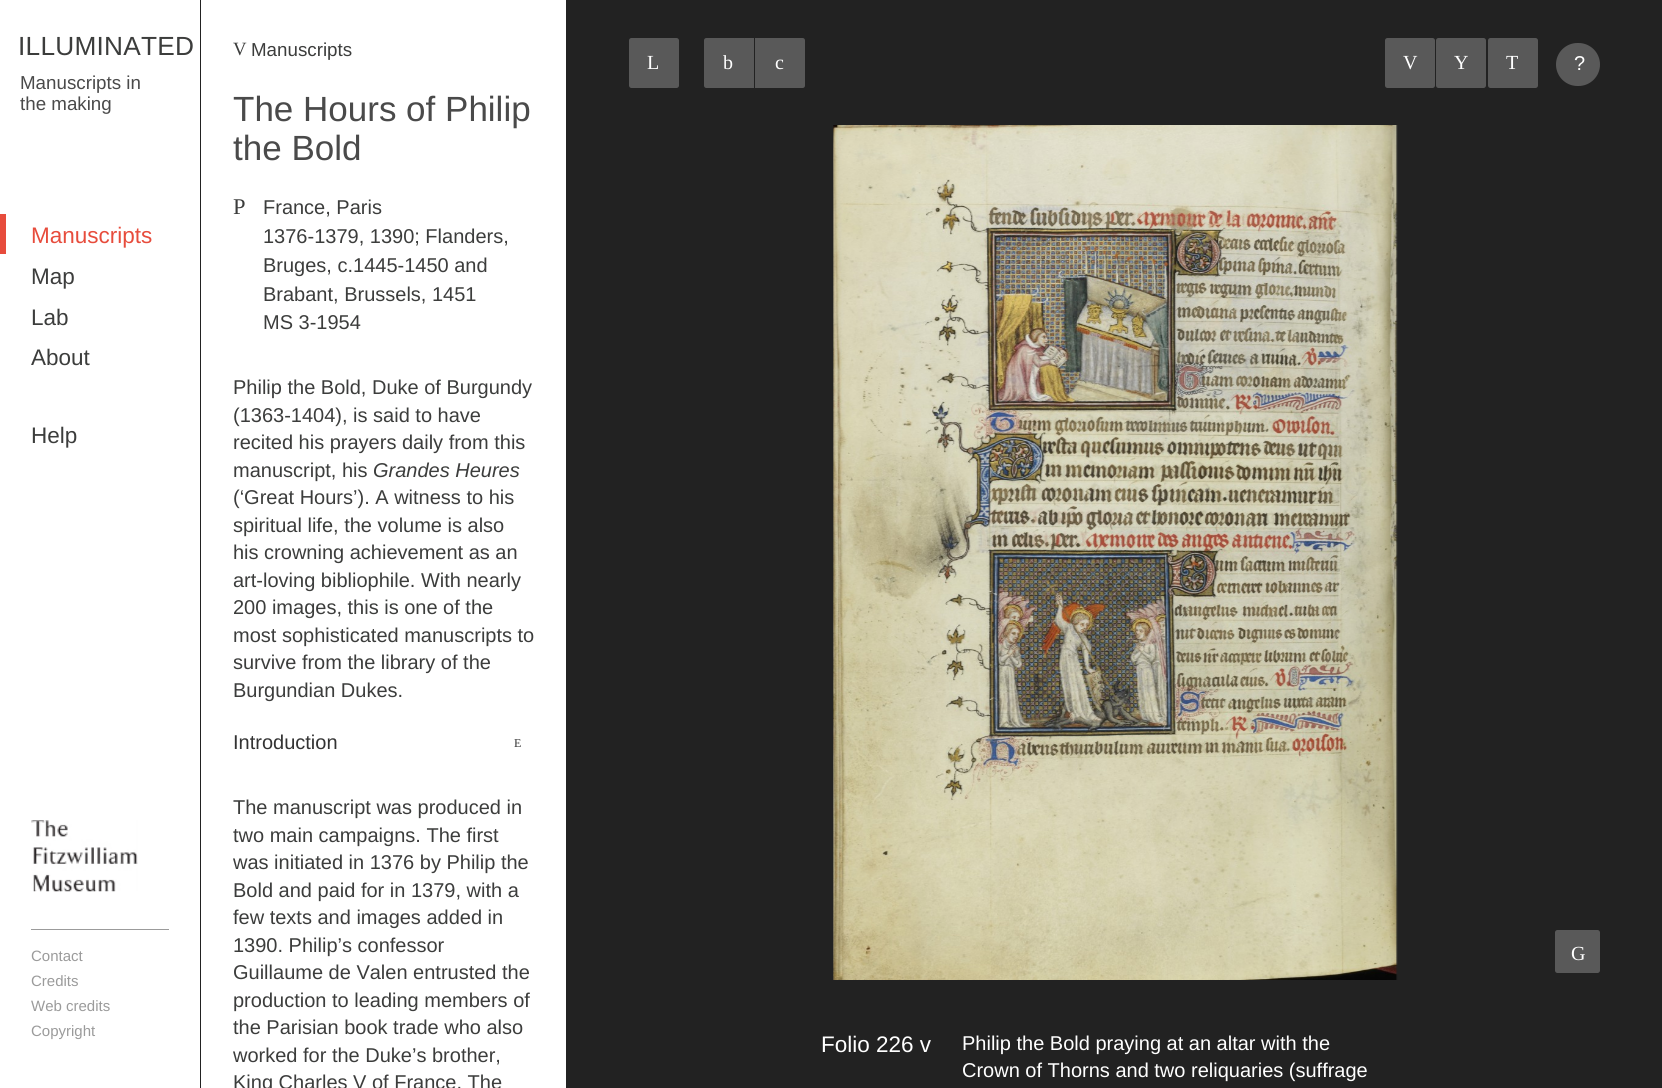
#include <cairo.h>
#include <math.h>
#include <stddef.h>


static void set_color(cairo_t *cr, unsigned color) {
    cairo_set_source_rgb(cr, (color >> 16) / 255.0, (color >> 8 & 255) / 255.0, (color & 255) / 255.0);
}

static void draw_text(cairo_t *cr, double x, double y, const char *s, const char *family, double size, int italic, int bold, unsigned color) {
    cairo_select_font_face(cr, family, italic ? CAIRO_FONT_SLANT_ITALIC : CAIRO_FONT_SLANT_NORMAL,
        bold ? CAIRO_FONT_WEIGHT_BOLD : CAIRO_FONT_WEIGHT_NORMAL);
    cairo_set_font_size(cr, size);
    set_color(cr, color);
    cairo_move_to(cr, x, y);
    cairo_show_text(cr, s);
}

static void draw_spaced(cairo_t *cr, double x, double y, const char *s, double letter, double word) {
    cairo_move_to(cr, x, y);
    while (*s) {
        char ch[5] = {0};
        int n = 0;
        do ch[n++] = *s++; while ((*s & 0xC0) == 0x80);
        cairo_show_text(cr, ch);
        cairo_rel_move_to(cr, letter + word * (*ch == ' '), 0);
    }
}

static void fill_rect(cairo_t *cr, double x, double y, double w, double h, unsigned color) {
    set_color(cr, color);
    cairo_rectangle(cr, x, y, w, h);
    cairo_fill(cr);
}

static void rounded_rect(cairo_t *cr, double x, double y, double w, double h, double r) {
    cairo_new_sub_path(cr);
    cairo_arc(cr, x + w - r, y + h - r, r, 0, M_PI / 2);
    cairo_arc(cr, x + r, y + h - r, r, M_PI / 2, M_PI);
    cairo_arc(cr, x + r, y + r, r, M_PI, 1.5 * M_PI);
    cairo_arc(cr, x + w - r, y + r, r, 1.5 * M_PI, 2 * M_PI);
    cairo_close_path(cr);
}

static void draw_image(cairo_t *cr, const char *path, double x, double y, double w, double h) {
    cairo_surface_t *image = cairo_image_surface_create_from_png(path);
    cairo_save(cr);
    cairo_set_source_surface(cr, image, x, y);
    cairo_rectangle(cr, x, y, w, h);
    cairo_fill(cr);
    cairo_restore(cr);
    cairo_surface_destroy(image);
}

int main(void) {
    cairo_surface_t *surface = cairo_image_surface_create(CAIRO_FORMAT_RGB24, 1662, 1088);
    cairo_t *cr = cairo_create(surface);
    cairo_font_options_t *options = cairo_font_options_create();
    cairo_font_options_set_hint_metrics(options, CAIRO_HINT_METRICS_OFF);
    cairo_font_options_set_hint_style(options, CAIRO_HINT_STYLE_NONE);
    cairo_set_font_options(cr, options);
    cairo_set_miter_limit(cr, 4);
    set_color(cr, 0x222222);
    cairo_paint(cr);
    fill_rect(cr, 0, 0, 200, 1088, 0xFFFFFF);
    cairo_select_font_face(cr, "Liberation Sans", CAIRO_FONT_SLANT_NORMAL, CAIRO_FONT_WEIGHT_NORMAL);
    cairo_set_font_size(cr, 26.25);
    set_color(cr, 0x3C3D3C);
    draw_spaced(cr, 18, 55, "ILLUMINATED", 0.25, 0);
    draw_text(cr, 20, 89, "Manuscripts in", "Liberation Sans", 18.75, 0, 0, 0x4A4A4A);
    draw_text(cr, 20, 110, "the making", "Liberation Sans", 18.75, 0, 0, 0x4A4A4A);
    fill_rect(cr, 0, 214, 6, 40, 0xE74C3C);
    draw_text(cr, 31, 243, "Manuscripts", "Liberation Sans", 22.5, 0, 0, 0xE74C3C);
    draw_text(cr, 31, 284, "Map", "Liberation Sans", 22.5, 0, 0, 0x3C3D3C);
    draw_text(cr, 31, 325, "Lab", "Liberation Sans", 22.5, 0, 0, 0x3C3D3C);
    draw_text(cr, 31, 365, "About", "Liberation Sans", 22.5, 0, 0, 0x3C3D3C);
    draw_text(cr, 31, 443, "Help", "Liberation Sans", 22.5, 0, 0, 0x3C3D3C);
    fill_rect(cr, 201, 0, 365, 1088, 0xFFFFFF);
    draw_text(cr, 233, 55, "V", "Liberation Serif", 18.75, 0, 0, 0x3C3D3C);
    draw_text(cr, 251, 56, "Manuscripts", "Liberation Sans", 18.75, 0, 0, 0x3C3D3C);
    draw_text(cr, 233, 121, "The Hours of Philip", "Liberation Sans", 35, 0, 0, 0x4A4A4A);
    draw_text(cr, 233, 160, "the Bold", "Liberation Sans", 35, 0, 0, 0x4A4A4A);
    draw_text(cr, 233, 214, "P", "Liberation Serif", 22.5, 0, 0, 0x3C3D3C);
    draw_text(cr, 263, 214, "France, Paris", "Liberation Sans", 20, 0, 0, 0x3C3D3C);
    draw_text(cr, 263, 243, "1376-1379, 1390; Flanders,", "Liberation Sans", 20, 0, 0, 0x3C3D3C);
    draw_text(cr, 263, 272, "Bruges, c.1445-1450 and", "Liberation Sans", 20, 0, 0, 0x3C3D3C);
    draw_text(cr, 263, 301, "Brabant, Brussels, 1451", "Liberation Sans", 20, 0, 0, 0x3C3D3C);
    draw_text(cr, 263, 329, "MS 3-1954", "Liberation Sans", 20, 0, 0, 0x3C3D3C);
    draw_text(cr, 233, 394, "Philip the Bold, Duke of Burgundy", "Liberation Sans", 20, 0, 0, 0x3C3D3C);
    draw_text(cr, 233, 422, "(1363-1404), is said to have", "Liberation Sans", 20, 0, 0, 0x3C3D3C);
    draw_text(cr, 233, 449, "recited his prayers daily from this", "Liberation Sans", 20, 0, 0, 0x3C3D3C);
    draw_text(cr, 233, 477, "manuscript, his", "Liberation Sans", 20, 0, 0, 0x3C3D3C);
    draw_text(cr, 373, 477, "Grandes Heures", "Liberation Sans", 20, 1, 0, 0x3C3D3C);
    draw_text(cr, 233, 504, "(‘Great Hours’). A witness to his", "Liberation Sans", 20, 0, 0, 0x3C3D3C);
    draw_text(cr, 233, 532, "spiritual life, the volume is also", "Liberation Sans", 20, 0, 0, 0x3C3D3C);
    draw_text(cr, 233, 559, "his crowning achievement as an", "Liberation Sans", 20, 0, 0, 0x3C3D3C);
    draw_text(cr, 233, 587, "art-loving bibliophile. With nearly", "Liberation Sans", 20, 0, 0, 0x3C3D3C);
    draw_text(cr, 233, 614, "200 images, this is one of the", "Liberation Sans", 20, 0, 0, 0x3C3D3C);
    draw_text(cr, 233, 642, "most sophisticated manuscripts to", "Liberation Sans", 20, 0, 0, 0x3C3D3C);
    draw_text(cr, 233, 669, "survive from the library of the", "Liberation Sans", 20, 0, 0, 0x3C3D3C);
    draw_text(cr, 233, 697, "Burgundian Dukes.", "Liberation Sans", 20, 0, 0, 0x3C3D3C);
    draw_text(cr, 233, 749, "Introduction", "Liberation Sans", 20, 0, 0, 0x333333);
    draw_text(cr, 514, 747, "E", "Liberation Serif", 12, 0, 0, 0x333333);
    draw_text(cr, 233, 814, "The manuscript was produced in", "Liberation Sans", 20, 0, 0, 0x3C3D3C);
    draw_text(cr, 233, 842, "two main campaigns. The first", "Liberation Sans", 20, 0, 0, 0x3C3D3C);
    draw_text(cr, 233, 869, "was initiated in 1376 by Philip the", "Liberation Sans", 20, 0, 0, 0x3C3D3C);
    draw_text(cr, 233, 897, "Bold and paid for in 1379, with a", "Liberation Sans", 20, 0, 0, 0x3C3D3C);
    draw_text(cr, 233, 924, "few texts and images added in", "Liberation Sans", 20, 0, 0, 0x3C3D3C);
    draw_text(cr, 233, 952, "1390. Philip’s confessor", "Liberation Sans", 20, 0, 0, 0x3C3D3C);
    draw_text(cr, 233, 979, "Guillaume de Valen entrusted the", "Liberation Sans", 20, 0, 0, 0x3C3D3C);
    draw_text(cr, 233, 1007, "production to leading members of", "Liberation Sans", 20, 0, 0, 0x3C3D3C);
    draw_text(cr, 233, 1034, "the Parisian book trade who also", "Liberation Sans", 20, 0, 0, 0x3C3D3C);
    draw_text(cr, 233, 1062, "worked for the Duke’s brother,", "Liberation Sans", 20, 0, 0, 0x3C3D3C);
    draw_text(cr, 233, 1089, "King Charles V of France. The", "Liberation Sans", 20, 0, 0, 0x3C3D3C);
    set_color(cr, 0x595959);
    rounded_rect(cr, 629, 38, 50, 50, 2.5);
    cairo_fill(cr);
    draw_text(cr, 647, 69, "L", "Liberation Serif", 20, 0, 0, 0xFFFFFF);
    set_color(cr, 0x595959);
    cairo_new_path(cr);
    cairo_move_to(cr, 706.5, 38);
    cairo_line_to(cr, 754, 38);
    cairo_line_to(cr, 754, 88);
    cairo_line_to(cr, 706.5, 88);
    cairo_curve_to(cr, 705, 88, 704, 87, 704, 85.5);
    cairo_line_to(cr, 704, 40.5);
    cairo_curve_to(cr, 704, 39, 705, 38, 706.5, 38);
    cairo_close_path(cr);
    cairo_fill(cr);
    draw_text(cr, 723, 69, "b", "Liberation Serif", 20, 0, 0, 0xFFFFFF);
    set_color(cr, 0x595959);
    cairo_new_path(cr);
    cairo_move_to(cr, 755, 38);
    cairo_line_to(cr, 802.5, 38);
    cairo_curve_to(cr, 804, 38, 805, 39, 805, 40.5);
    cairo_line_to(cr, 805, 85.5);
    cairo_curve_to(cr, 805, 87, 804, 88, 802.5, 88);
    cairo_line_to(cr, 755, 88);
    cairo_close_path(cr);
    cairo_fill(cr);
    draw_text(cr, 775, 69, "c", "Liberation Serif", 20, 0, 0, 0xFFFFFF);
    set_color(cr, 0x595959);
    rounded_rect(cr, 1385, 38, 50, 50, 2.5);
    cairo_fill(cr);
    draw_text(cr, 1403, 69, "V", "Liberation Serif", 20, 0, 0, 0xFFFFFF);
    set_color(cr, 0x595959);
    rounded_rect(cr, 1436, 38, 50, 50, 2.5);
    cairo_fill(cr);
    draw_text(cr, 1454, 69, "Y", "Liberation Serif", 20, 0, 0, 0xFFFFFF);
    set_color(cr, 0x595959);
    rounded_rect(cr, 1488, 38, 50, 50, 2.5);
    cairo_fill(cr);
    draw_text(cr, 1506, 69, "T", "Liberation Serif", 20, 0, 0, 0xFFFFFF);
    set_color(cr, 0x595959);
    rounded_rect(cr, 1556, 43, 44, 43, 21.5);
    cairo_fill(cr);
    draw_text(cr, 1574, 70, "?", "Liberation Sans", 20, 0, 0, 0xFFFFFF);
    draw_image(cr, "assets/img1.png", 833, 125, 565, 855);
    set_color(cr, 0x595959);
    rounded_rect(cr, 1555, 930, 45, 43, 2.5);
    cairo_fill(cr);
    draw_text(cr, 1571, 960, "G", "Liberation Serif", 20, 0, 0, 0xFFFFFF);
    draw_text(cr, 821, 1052, "Folio 226 v", "Liberation Sans", 22.5, 0, 0, 0xFFFFFF);
    draw_text(cr, 962, 1050, "Philip the Bold praying at an altar with the", "Liberation Sans", 20, 0, 0, 0xFFFFFF);
    draw_text(cr, 962, 1077, "Crown of Thorns and two reliquaries (suffrage", "Liberation Sans", 20, 0, 0, 0xFFFFFF);
    fill_rect(cr, 31, 929, 138, 1, 0x9B9B9B);
    draw_image(cr, "assets/img2.png", 31, 820, 107, 72);
    draw_text(cr, 31, 961, "Contact", "Liberation Sans", 15, 0, 0, 0x9B9B9B);
    draw_text(cr, 31, 986, "Credits", "Liberation Sans", 15, 0, 0, 0x9B9B9B);
    draw_text(cr, 31, 1011, "Web credits", "Liberation Sans", 15, 0, 0, 0x9B9B9B);
    draw_text(cr, 31, 1036, "Copyright", "Liberation Sans", 15, 0, 0, 0x9B9B9B);
    cairo_surface_write_to_png(surface, "output.png");
    cairo_font_options_destroy(options);
    cairo_destroy(cr);
    cairo_surface_destroy(surface);
    return 0;
}
